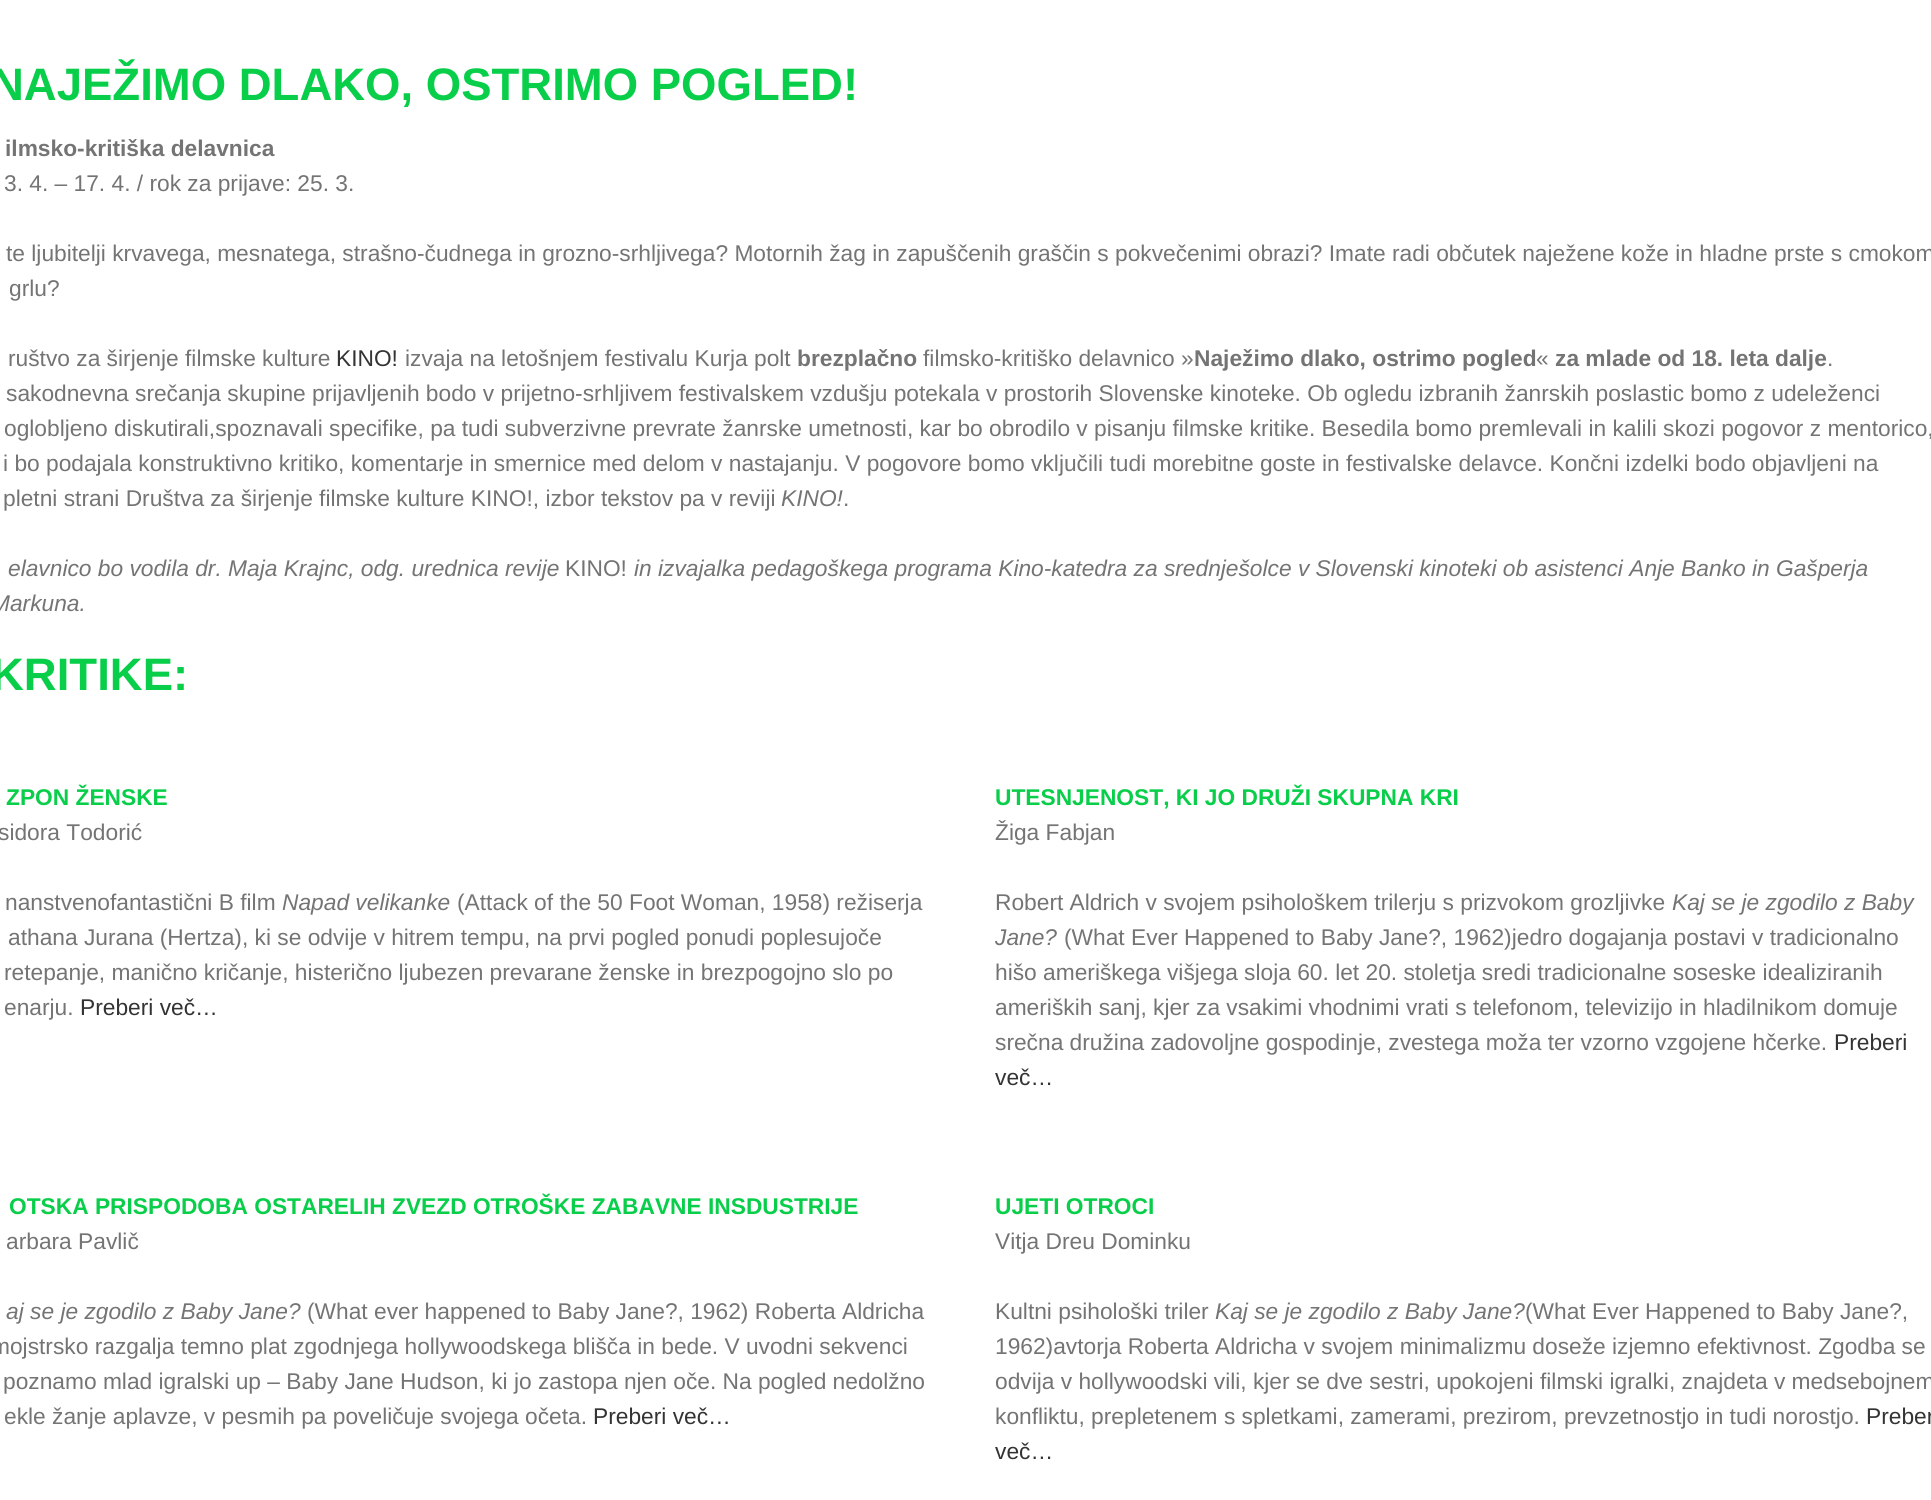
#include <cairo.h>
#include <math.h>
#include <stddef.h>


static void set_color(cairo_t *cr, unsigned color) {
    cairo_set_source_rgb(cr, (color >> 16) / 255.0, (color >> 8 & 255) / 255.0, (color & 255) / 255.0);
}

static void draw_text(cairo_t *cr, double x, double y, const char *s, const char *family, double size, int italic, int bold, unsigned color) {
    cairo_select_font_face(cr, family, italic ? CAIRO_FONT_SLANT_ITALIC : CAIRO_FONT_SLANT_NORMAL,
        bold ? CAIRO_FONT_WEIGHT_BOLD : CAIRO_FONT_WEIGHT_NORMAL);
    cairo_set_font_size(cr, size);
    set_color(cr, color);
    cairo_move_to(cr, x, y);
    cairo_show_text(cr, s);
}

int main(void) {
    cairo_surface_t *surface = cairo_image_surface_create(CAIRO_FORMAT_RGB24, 1931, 1500);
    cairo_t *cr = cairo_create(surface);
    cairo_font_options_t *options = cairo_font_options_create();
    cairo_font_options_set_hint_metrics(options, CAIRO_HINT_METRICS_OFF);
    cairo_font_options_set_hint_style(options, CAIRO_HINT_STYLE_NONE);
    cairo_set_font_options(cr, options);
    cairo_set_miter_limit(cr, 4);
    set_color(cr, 0xFFFFFF);
    cairo_paint(cr);
    draw_text(cr, -9, 100, "NAJEŽIMO DLAKO, OSTRIMO POGLED!", "Liberation Sans", 45.5, 0, 1, 0x08CE4A);
    draw_text(cr, 5, 156, "ilmsko-kritiška delavnica", "Liberation Sans", 22.75, 0, 1, 0x747474);
    draw_text(cr, 4, 191, "3. 4. – 17. 4. / rok za prijave: 25. 3.", "Liberation Sans", 22.75, 0, 0, 0x747474);
    draw_text(cr, 6, 261, "te ljubitelji krvavega, mesnatega, strašno-čudnega in grozno-srhljivega? Motornih žag in zapuščenih graščin s pokvečenimi obrazi? Imate radi občutek naježene kože in hladne prste s cmokom", "Liberation Sans", 22.75, 0, 0, 0x747474);
    draw_text(cr, 9, 296, "grlu?", "Liberation Sans", 22.75, 0, 0, 0x747474);
    draw_text(cr, 8, 366, "ruštvo za širjenje filmske kulture", "Liberation Sans", 22.75, 0, 0, 0x747474);
    draw_text(cr, 336, 366, "KINO!", "Liberation Sans", 22.75, 0, 0, 0x333333);
    draw_text(cr, 405, 366, "izvaja na letošnjem festivalu Kurja polt", "Liberation Sans", 22.75, 0, 0, 0x747474);
    draw_text(cr, 797, 366, "brezplačno", "Liberation Sans", 22.75, 0, 1, 0x747474);
    draw_text(cr, 923, 366, "filmsko-kritiško delavnico »", "Liberation Sans", 22.75, 0, 0, 0x747474);
    draw_text(cr, 1194, 366, "Naježimo dlako, ostrimo pogled", "Liberation Sans", 22.75, 0, 1, 0x747474);
    draw_text(cr, 1536, 366, "«", "Liberation Sans", 22.75, 0, 0, 0x747474);
    draw_text(cr, 1555, 366, "za mlade od 18. leta dalje", "Liberation Sans", 22.75, 0, 1, 0x747474);
    draw_text(cr, 1827, 366, ".", "Liberation Sans", 22.75, 0, 0, 0x747474);
    draw_text(cr, 6, 401, "sakodnevna srečanja skupine prijavljenih bodo v prijetno-srhljivem festivalskem vzdušju potekala v prostorih Slovenske kinoteke. Ob ogledu izbranih žanrskih poslastic bomo z udeleženci", "Liberation Sans", 22.75, 0, 0, 0x747474);
    draw_text(cr, 4, 436, "oglobljeno diskutirali,spoznavali specifike, pa tudi subverzivne prevrate žanrske umetnosti, kar bo obrodilo v pisanju filmske kritike. Besedila bomo premlevali in kalili skozi pogovor z mentorico,", "Liberation Sans", 22.75, 0, 0, 0x747474);
    draw_text(cr, 3, 471, "i bo podajala konstruktivno kritiko, komentarje in smernice med delom v nastajanju. V pogovore bomo vključili tudi morebitne goste in festivalske delavce. Končni izdelki bodo objavljeni na", "Liberation Sans", 22.75, 0, 0, 0x747474);
    draw_text(cr, 3, 506, "pletni strani Društva za širjenje filmske kulture KINO!, izbor tekstov pa v reviji", "Liberation Sans", 22.75, 0, 0, 0x747474);
    draw_text(cr, 781, 506, "KINO!", "Liberation Sans", 22.75, 1, 0, 0x747474);
    draw_text(cr, 843, 506, ".", "Liberation Sans", 22.75, 0, 0, 0x747474);
    draw_text(cr, 8, 576, "elavnico bo vodila dr. Maja Krajnc, odg. urednica revije", "Liberation Sans", 22.75, 1, 0, 0x747474);
    draw_text(cr, 565, 576, "KINO!", "Liberation Sans", 22.75, 0, 0, 0x747474);
    draw_text(cr, 634, 576, "in izvajalka pedagoškega programa Kino-katedra za srednješolce v Slovenski kinoteki ob asistenci Anje Banko in Gašperja", "Liberation Sans", 22.75, 1, 0, 0x747474);
    draw_text(cr, -9, 611, "Markuna.", "Liberation Sans", 22.75, 1, 0, 0x747474);
    draw_text(cr, -9, 690, "KRITIKE:", "Liberation Sans", 45.5, 0, 1, 0x08CE4A);
    draw_text(cr, 6, 805, "ZPON ŽENSKE", "Liberation Sans", 22.75, 0, 1, 0x08CE4A);
    draw_text(cr, -2, 840, "sidora Todorić", "Liberation Sans", 22.75, 0, 0, 0x747474);
    draw_text(cr, 5, 910, "nanstvenofantastični B film", "Liberation Sans", 22.75, 0, 0, 0x747474);
    draw_text(cr, 282, 910, "Napad velikanke", "Liberation Sans", 22.75, 1, 0, 0x747474);
    draw_text(cr, 457, 910, "(Attack of the 50 Foot Woman, 1958) režiserja", "Liberation Sans", 22.75, 0, 0, 0x747474);
    draw_text(cr, 8, 945, "athana Jurana (Hertza), ki se odvije v hitrem tempu, na prvi pogled ponudi poplesujoče", "Liberation Sans", 22.75, 0, 0, 0x747474);
    draw_text(cr, 4, 980, "retepanje, manično kričanje, histerično ljubezen prevarane ženske in brezpogojno slo po", "Liberation Sans", 22.75, 0, 0, 0x747474);
    draw_text(cr, 4, 1015, "enarju.", "Liberation Sans", 22.75, 0, 0, 0x747474);
    draw_text(cr, 80, 1015, "Preberi več…", "Liberation Sans", 22.75, 0, 0, 0x333333);
    draw_text(cr, 995, 805, "UTESNJENOST, KI JO DRUŽI SKUPNA KRI", "Liberation Sans", 22.75, 0, 1, 0x08CE4A);
    draw_text(cr, 995, 840, "Žiga Fabjan", "Liberation Sans", 22.75, 0, 0, 0x747474);
    draw_text(cr, 995, 910, "Robert Aldrich v svojem psihološkem trilerju s prizvokom grozljivke", "Liberation Sans", 22.75, 0, 0, 0x747474);
    draw_text(cr, 1672, 910, "Kaj se je zgodilo z Baby", "Liberation Sans", 22.75, 1, 0, 0x747474);
    draw_text(cr, 995, 945, "Jane?", "Liberation Sans", 22.75, 1, 0, 0x747474);
    draw_text(cr, 1064, 945, "(What Ever Happened to Baby Jane?, 1962)jedro dogajanja postavi v tradicionalno", "Liberation Sans", 22.75, 0, 0, 0x747474);
    draw_text(cr, 995, 980, "hišo ameriškega višjega sloja 60. let 20. stoletja sredi tradicionalne soseske idealiziranih", "Liberation Sans", 22.75, 0, 0, 0x747474);
    draw_text(cr, 995, 1015, "ameriških sanj, kjer za vsakimi vhodnimi vrati s telefonom, televizijo in hladilnikom domuje", "Liberation Sans", 22.75, 0, 0, 0x747474);
    draw_text(cr, 995, 1050, "srečna družina zadovoljne gospodinje, zvestega moža ter vzorno vzgojene hčerke.", "Liberation Sans", 22.75, 0, 0, 0x747474);
    draw_text(cr, 1834, 1050, "Preberi", "Liberation Sans", 22.75, 0, 0, 0x333333);
    draw_text(cr, 995, 1085, "več…", "Liberation Sans", 22.75, 0, 0, 0x333333);
    draw_text(cr, 9, 1214, "OTSKA PRISPODOBA OSTARELIH ZVEZD OTROŠKE ZABAVNE INSDUSTRIJE", "Liberation Sans", 22.75, 0, 1, 0x08CE4A);
    draw_text(cr, 6, 1249, "arbara Pavlič", "Liberation Sans", 22.75, 0, 0, 0x747474);
    draw_text(cr, 6, 1319, "aj se je zgodilo z Baby Jane?", "Liberation Sans", 22.75, 1, 0, 0x747474);
    draw_text(cr, 307, 1319, "(What ever happened to Baby Jane?, 1962) Roberta Aldricha", "Liberation Sans", 22.75, 0, 0, 0x747474);
    draw_text(cr, -9, 1354, "mojstrsko razgalja temno plat zgodnjega hollywoodskega blišča in bede. V uvodni sekvenci", "Liberation Sans", 22.75, 0, 0, 0x747474);
    draw_text(cr, 3, 1389, "poznamo mlad igralski up – Baby Jane Hudson, ki jo zastopa njen oče. Na pogled nedolžno", "Liberation Sans", 22.75, 0, 0, 0x747474);
    draw_text(cr, 4, 1424, "ekle žanje aplavze, v pesmih pa poveličuje svojega očeta.", "Liberation Sans", 22.75, 0, 0, 0x747474);
    draw_text(cr, 593, 1424, "Preberi več…", "Liberation Sans", 22.75, 0, 0, 0x333333);
    draw_text(cr, 995, 1214, "UJETI OTROCI", "Liberation Sans", 22.75, 0, 1, 0x08CE4A);
    draw_text(cr, 995, 1249, "Vitja Dreu Dominku", "Liberation Sans", 22.75, 0, 0, 0x747474);
    draw_text(cr, 995, 1319, "Kultni psihološki triler", "Liberation Sans", 22.75, 0, 0, 0x747474);
    draw_text(cr, 1215, 1319, "Kaj se je zgodilo z Baby Jane?", "Liberation Sans", 22.75, 1, 0, 0x747474);
    draw_text(cr, 1525, 1319, "(What Ever Happened to Baby Jane?,", "Liberation Sans", 22.75, 0, 0, 0x747474);
    draw_text(cr, 995, 1354, "1962)avtorja Roberta Aldricha v svojem minimalizmu doseže izjemno efektivnost. Zgodba se", "Liberation Sans", 22.75, 0, 0, 0x747474);
    draw_text(cr, 995, 1389, "odvija v hollywoodski vili, kjer se dve sestri, upokojeni filmski igralki, znajdeta v medsebojnem", "Liberation Sans", 22.75, 0, 0, 0x747474);
    draw_text(cr, 995, 1424, "konfliktu, prepletenem s spletkami, zamerami, prezirom, prevzetnostjo in tudi norostjo.", "Liberation Sans", 22.75, 0, 0, 0x747474);
    draw_text(cr, 1866, 1424, "Preber", "Liberation Sans", 22.75, 0, 0, 0x333333);
    draw_text(cr, 995, 1459, "več…", "Liberation Sans", 22.75, 0, 0, 0x333333);
    cairo_surface_write_to_png(surface, "output.png");
    cairo_font_options_destroy(options);
    cairo_destroy(cr);
    cairo_surface_destroy(surface);
    return 0;
}
